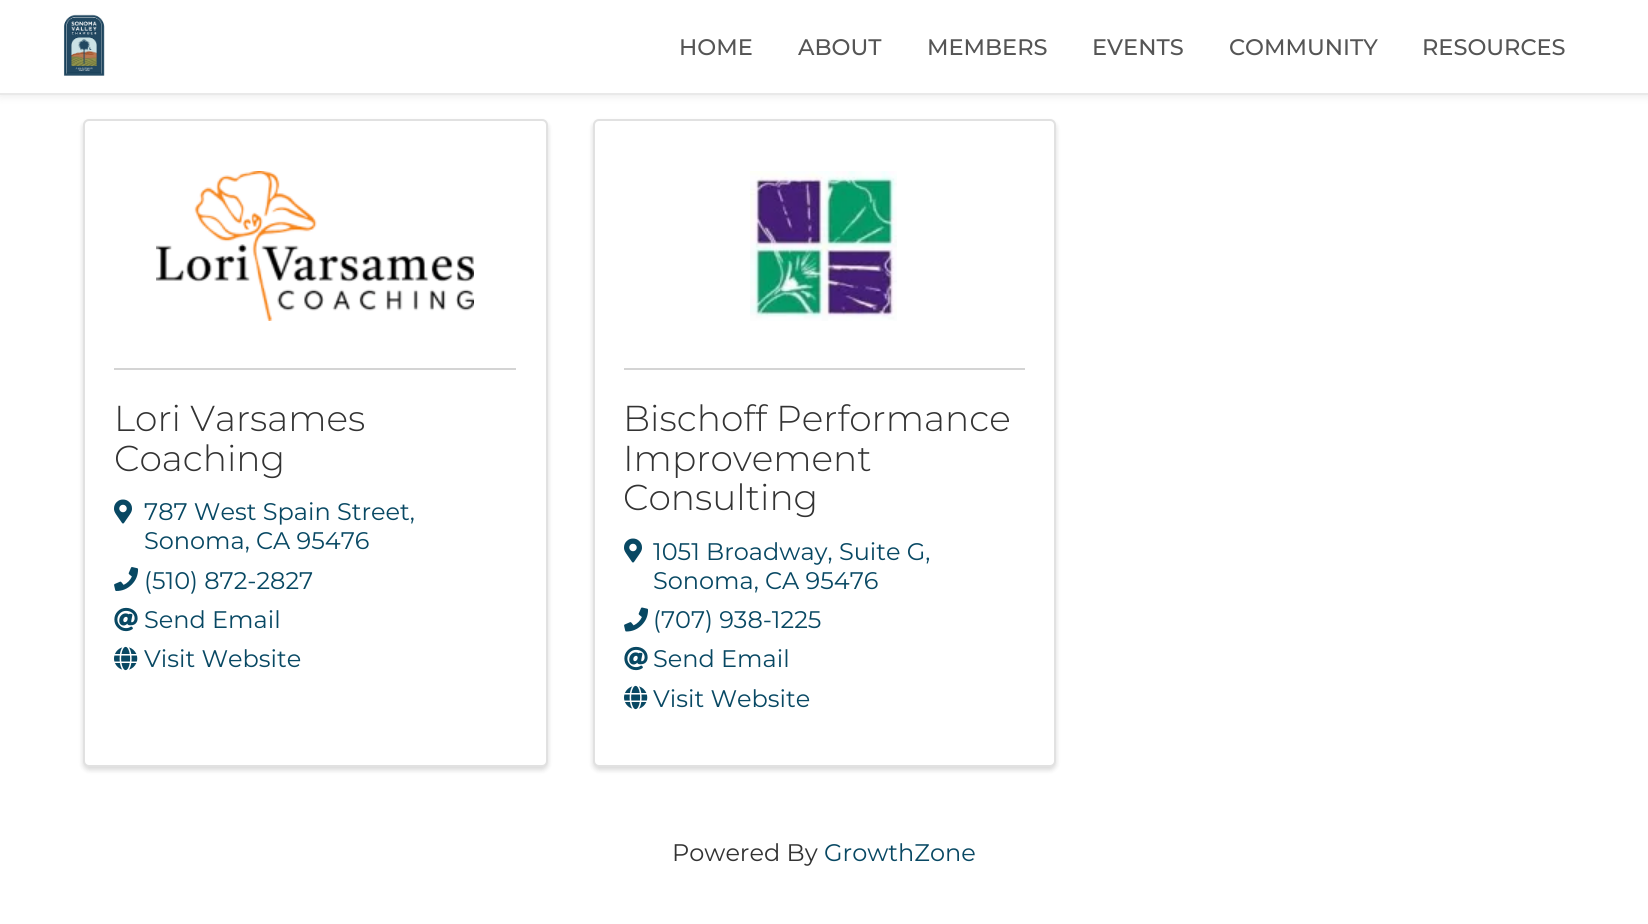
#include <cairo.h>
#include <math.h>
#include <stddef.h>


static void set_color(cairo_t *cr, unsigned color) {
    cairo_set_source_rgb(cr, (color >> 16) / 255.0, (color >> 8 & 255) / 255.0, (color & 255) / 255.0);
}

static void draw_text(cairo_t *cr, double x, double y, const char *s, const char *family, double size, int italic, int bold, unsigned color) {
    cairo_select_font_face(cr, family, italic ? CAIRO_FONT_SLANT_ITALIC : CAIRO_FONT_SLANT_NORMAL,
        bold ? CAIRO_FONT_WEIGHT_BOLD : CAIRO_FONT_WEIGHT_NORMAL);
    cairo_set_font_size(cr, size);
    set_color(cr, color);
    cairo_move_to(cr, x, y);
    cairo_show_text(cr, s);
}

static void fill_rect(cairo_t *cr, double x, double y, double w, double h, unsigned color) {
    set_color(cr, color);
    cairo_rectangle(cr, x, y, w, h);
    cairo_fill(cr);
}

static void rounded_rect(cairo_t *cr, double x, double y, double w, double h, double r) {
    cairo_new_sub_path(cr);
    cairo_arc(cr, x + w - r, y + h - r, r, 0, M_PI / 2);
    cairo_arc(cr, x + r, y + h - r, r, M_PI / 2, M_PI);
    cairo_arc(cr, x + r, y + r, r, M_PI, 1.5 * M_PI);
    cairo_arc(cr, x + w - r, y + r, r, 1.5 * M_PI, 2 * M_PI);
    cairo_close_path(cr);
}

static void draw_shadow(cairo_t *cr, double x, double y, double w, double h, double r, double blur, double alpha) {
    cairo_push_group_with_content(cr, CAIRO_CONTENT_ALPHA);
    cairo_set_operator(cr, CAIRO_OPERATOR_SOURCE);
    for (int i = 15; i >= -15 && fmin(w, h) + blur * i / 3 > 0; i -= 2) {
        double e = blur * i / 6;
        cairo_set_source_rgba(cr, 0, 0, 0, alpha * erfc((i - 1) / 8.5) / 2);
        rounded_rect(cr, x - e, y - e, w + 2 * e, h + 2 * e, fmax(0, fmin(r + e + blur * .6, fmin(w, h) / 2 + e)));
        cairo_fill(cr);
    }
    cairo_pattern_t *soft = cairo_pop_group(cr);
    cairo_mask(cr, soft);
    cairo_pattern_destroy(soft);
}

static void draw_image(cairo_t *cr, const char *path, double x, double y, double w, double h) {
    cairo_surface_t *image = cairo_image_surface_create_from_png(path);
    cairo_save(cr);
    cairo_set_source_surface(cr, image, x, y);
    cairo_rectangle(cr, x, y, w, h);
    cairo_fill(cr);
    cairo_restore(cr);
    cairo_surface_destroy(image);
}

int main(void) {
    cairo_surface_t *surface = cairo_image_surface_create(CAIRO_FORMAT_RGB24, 1648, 924);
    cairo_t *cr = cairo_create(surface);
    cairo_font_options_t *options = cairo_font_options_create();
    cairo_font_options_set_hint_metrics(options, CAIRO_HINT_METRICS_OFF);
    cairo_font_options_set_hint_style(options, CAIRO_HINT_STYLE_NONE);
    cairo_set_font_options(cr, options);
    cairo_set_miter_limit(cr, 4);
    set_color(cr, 0xFFFFFF);
    cairo_paint(cr);
    set_color(cr, 0x000000);
    draw_shadow(cr, 0, 0, 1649, 95, 0, 5, 0.1);
    fill_rect(cr, 0, 0, 1648, 93, 0xFFFFFF);
    fill_rect(cr, 0, 93, 1648, 2, 0xE9E9E9);
    draw_image(cr, "assets/img1.png", 63, 14, 42, 62);
    draw_text(cr, 679, 55, "HOME", "Montserrat Medium", 22.5, 0, 0, 0x555555);
    draw_text(cr, 798, 55, "ABOUT", "Montserrat Medium", 22.5, 0, 0, 0x555555);
    draw_text(cr, 927, 55, "MEMBERS", "Montserrat Medium", 22.5, 0, 0, 0x555555);
    draw_text(cr, 1092, 55, "EVENTS", "Montserrat Medium", 22.5, 0, 0, 0x555555);
    draw_text(cr, 1229, 55, "COMMUNITY", "Montserrat Medium", 22.5, 0, 0, 0x555555);
    draw_text(cr, 1422, 55, "RESOURCES", "Montserrat Medium", 22.5, 0, 0, 0x555555);
    set_color(cr, 0x000000);
    draw_shadow(cr, 83, 122, 465, 648, 6, 2.5, 0.15);
    set_color(cr, 0xFFFFFF);
    rounded_rect(cr, 83, 119, 465, 648, 6);
    cairo_fill(cr);
    rounded_rect(cr, 84, 120, 463, 646, 5);
    cairo_set_source_rgba(cr, 0, 0, 0, 0.12);
    cairo_stroke(cr);
    draw_image(cr, "assets/img2.png", 156, 171, 318, 150);
    fill_rect(cr, 114, 368, 402, 2, 0xD4D4D4);
    draw_text(cr, 114, 431, "Lori Varsames", "Montserrat Light", 36, 0, 0, 0x333333);
    draw_text(cr, 114, 471, "Coaching", "Montserrat Light", 36, 0, 0, 0x333333);
    draw_image(cr, "assets/img3.png", 114, 499, 18, 25);
    draw_text(cr, 144, 520, "787 West Spain Street,", "Montserrat", 24, 0, 0, 0x084863);
    draw_text(cr, 144, 549, "Sonoma, CA 95476", "Montserrat", 24, 0, 0, 0x084863);
    draw_image(cr, "assets/img4.png", 114, 567, 25, 24);
    draw_text(cr, 144, 589, "(510) 872-2827", "Montserrat", 24, 0, 0, 0x084863);
    draw_image(cr, "assets/img5.png", 114, 607, 24, 25);
    draw_text(cr, 144, 628, "Send Email", "Montserrat", 24, 0, 0, 0x084863);
    draw_image(cr, "assets/img6.png", 114, 646, 24, 25);
    draw_text(cr, 144, 667, "Visit Website", "Montserrat", 24, 0, 0, 0x084863);
    set_color(cr, 0x000000);
    draw_shadow(cr, 593, 122, 463, 648, 6, 2.5, 0.15);
    set_color(cr, 0xFFFFFF);
    rounded_rect(cr, 593, 119, 463, 648, 6);
    cairo_fill(cr);
    rounded_rect(cr, 594, 120, 461, 646, 5);
    cairo_set_source_rgba(cr, 0, 0, 0, 0.12);
    cairo_stroke(cr);
    draw_image(cr, "assets/img7.png", 750, 171, 147, 150);
    fill_rect(cr, 624, 368, 401, 2, 0xD4D4D4);
    draw_text(cr, 623, 431, "Bischoff Performance", "Montserrat Light", 36, 0, 0, 0x333333);
    draw_text(cr, 623, 471, "Improvement", "Montserrat Light", 36, 0, 0, 0x333333);
    draw_text(cr, 623, 510, "Consulting", "Montserrat Light", 36, 0, 0, 0x333333);
    draw_image(cr, "assets/img3.png", 624, 538, 18, 25);
    draw_text(cr, 653, 560, "1051 Broadway, Suite G,", "Montserrat", 24, 0, 0, 0x084863);
    draw_text(cr, 653, 589, "Sonoma, CA 95476", "Montserrat", 24, 0, 0, 0x084863);
    draw_image(cr, "assets/img8.png", 624, 607, 24, 25);
    draw_text(cr, 653, 628, "(707) 938-1225", "Montserrat", 24, 0, 0, 0x084863);
    draw_image(cr, "assets/img5.png", 624, 646, 24, 25);
    draw_text(cr, 653, 667, "Send Email", "Montserrat", 24, 0, 0, 0x084863);
    draw_image(cr, "assets/img6.png", 624, 685, 24, 25);
    draw_text(cr, 653, 707, "Visit Website", "Montserrat", 24, 0, 0, 0x084863);
    draw_text(cr, 672, 861, "Powered By", "Montserrat", 24, 0, 0, 0x333333);
    draw_text(cr, 824, 861, "GrowthZone", "Montserrat", 24, 0, 0, 0x084863);
    cairo_surface_write_to_png(surface, "output.png");
    cairo_font_options_destroy(options);
    cairo_destroy(cr);
    cairo_surface_destroy(surface);
    return 0;
}
